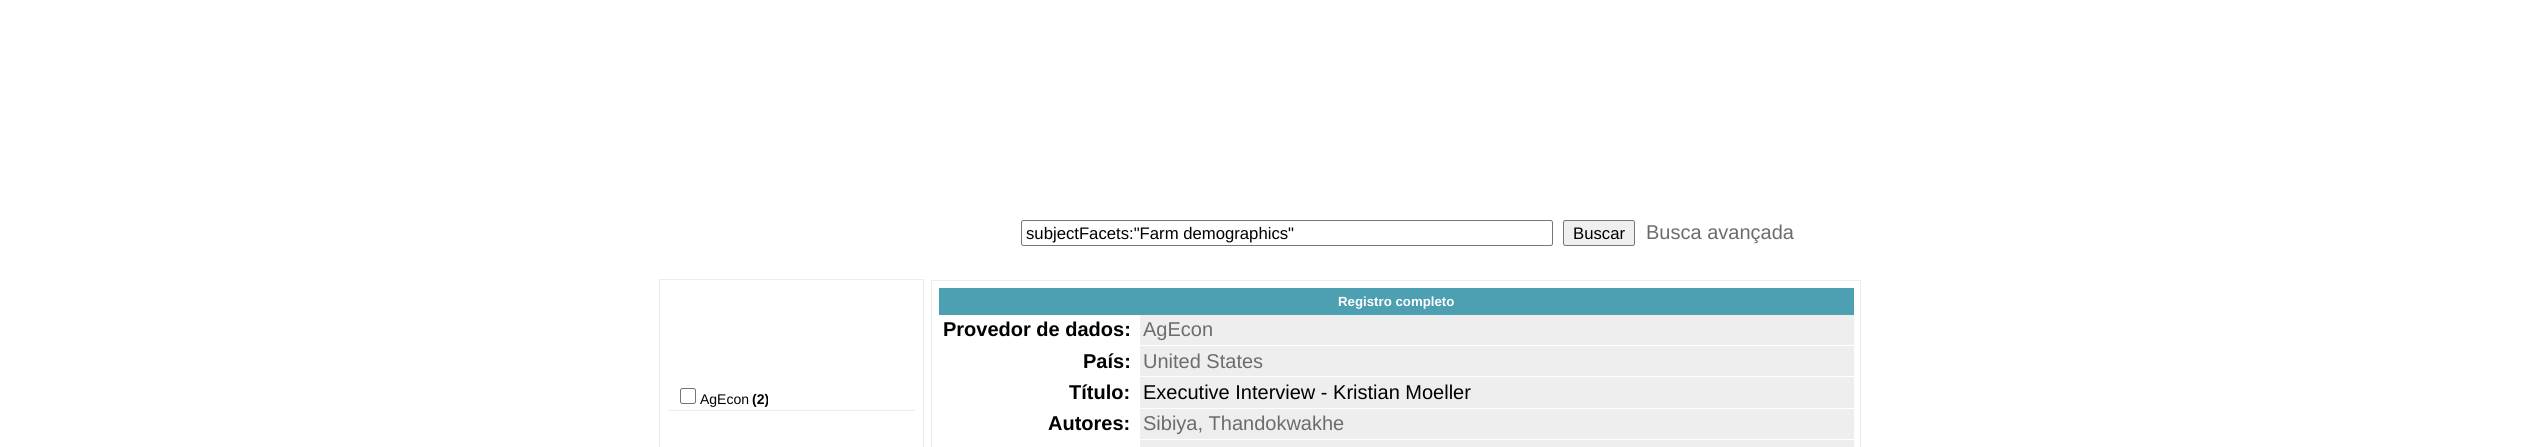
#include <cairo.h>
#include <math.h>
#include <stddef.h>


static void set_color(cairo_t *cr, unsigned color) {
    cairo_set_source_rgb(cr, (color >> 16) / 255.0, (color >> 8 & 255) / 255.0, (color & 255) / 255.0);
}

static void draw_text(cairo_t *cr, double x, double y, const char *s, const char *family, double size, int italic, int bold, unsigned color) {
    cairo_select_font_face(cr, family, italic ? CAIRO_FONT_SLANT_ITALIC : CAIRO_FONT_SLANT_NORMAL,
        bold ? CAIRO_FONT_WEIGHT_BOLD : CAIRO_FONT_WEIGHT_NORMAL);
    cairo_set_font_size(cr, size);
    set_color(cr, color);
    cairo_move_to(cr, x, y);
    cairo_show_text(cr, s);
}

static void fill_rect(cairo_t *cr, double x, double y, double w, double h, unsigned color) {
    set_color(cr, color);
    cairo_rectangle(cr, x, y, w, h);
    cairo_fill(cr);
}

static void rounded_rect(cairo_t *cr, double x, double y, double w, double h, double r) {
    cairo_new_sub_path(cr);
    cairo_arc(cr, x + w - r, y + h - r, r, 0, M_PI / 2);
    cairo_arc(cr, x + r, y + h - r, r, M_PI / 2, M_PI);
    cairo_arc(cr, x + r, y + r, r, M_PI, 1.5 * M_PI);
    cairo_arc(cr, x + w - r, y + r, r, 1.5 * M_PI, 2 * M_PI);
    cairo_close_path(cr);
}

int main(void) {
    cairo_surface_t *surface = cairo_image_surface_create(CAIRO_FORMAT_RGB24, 2527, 447);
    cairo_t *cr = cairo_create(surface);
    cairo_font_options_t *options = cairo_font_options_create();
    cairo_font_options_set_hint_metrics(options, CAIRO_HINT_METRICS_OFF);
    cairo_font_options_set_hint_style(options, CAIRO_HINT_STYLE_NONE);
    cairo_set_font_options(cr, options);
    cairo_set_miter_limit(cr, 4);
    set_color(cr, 0xFFFFFF);
    cairo_paint(cr);
    rounded_rect(cr, 1021.5, 220.5, 531, 25, 2);
    set_color(cr, 0x767676);
    cairo_set_line_width(cr, 1);
    cairo_stroke(cr);
    draw_text(cr, 1026, 239, "subjectFacets:\"Farm demographics\"", "Liberation Sans", 16.7, 0, 0, 0x000000);
    set_color(cr, 0xEFEFEF);
    rounded_rect(cr, 1563.5, 220.5, 71, 25, 2);
    cairo_fill_preserve(cr);
    set_color(cr, 0x767676);
    cairo_stroke(cr);
    draw_text(cr, 1573, 239, "Buscar", "Liberation Sans", 16.7, 0, 0, 0x000000);
    draw_text(cr, 1646, 239, "Busca avançada", "Liberation Sans", 20, 0, 0, 0x6C6C6C);
    fill_rect(cr, 659, 279, 265, 168, 0xECECEC);
    fill_rect(cr, 660, 280, 263, 167, 0xFFFFFF);
    fill_rect(cr, 668, 410, 247, 1, 0xECECEC);
    rounded_rect(cr, 680.5, 388.5, 15, 15, 2);
    set_color(cr, 0x767676);
    cairo_stroke(cr);
    draw_text(cr, 700, 404, "AgEcon", "Liberation Sans", 14, 0, 0, 0x000000);
    draw_text(cr, 752, 404, "(2)", "Liberation Sans", 14, 0, 1, 0x000000);
    cairo_rectangle(cr, 931.5, 280.5, 929, 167);
    set_color(cr, 0xECECEC);
    cairo_stroke(cr);
    fill_rect(cr, 939, 288, 915, 27, 0x4DA0B2);
    draw_text(cr, 1338, 306, "Registro completo", "Liberation Sans", 13.25, 0, 1, 0xFFFFFF);
    draw_text(cr, 943, 336, "Provedor de dados:", "Liberation Sans", 20, 0, 1, 0x000000);
    fill_rect(cr, 1140, 315, 714, 30, 0xEEEEEE);
    draw_text(cr, 1143, 336, "AgEcon", "Liberation Sans", 20, 0, 0, 0x6C6C6C);
    draw_text(cr, 1083, 368, "País:", "Liberation Sans", 20, 0, 1, 0x000000);
    fill_rect(cr, 1140, 346, 714, 62, 0xEEEEEE);
    fill_rect(cr, 1140, 376, 714, 1, 0xFFFFFF);
    draw_text(cr, 1143, 368, "United States", "Liberation Sans", 20, 0, 0, 0x6C6C6C);
    draw_text(cr, 1069, 399, "Título:", "Liberation Sans", 20, 0, 1, 0x000000);
    draw_text(cr, 1143, 399, "Executive Interview - Kristian Moeller", "Liberation Sans", 20, 0, 0, 0x000000);
    draw_text(cr, 1048, 430, "Autores:", "Liberation Sans", 20, 0, 1, 0x000000);
    fill_rect(cr, 1140, 409, 714, 30, 0xEEEEEE);
    draw_text(cr, 1143, 430, "Sibiya, Thandokwakhe", "Liberation Sans", 20, 0, 0, 0x6C6C6C);
    fill_rect(cr, 1140, 440, 714, 7, 0xEEEEEE);
    cairo_surface_write_to_png(surface, "output.png");
    cairo_font_options_destroy(options);
    cairo_destroy(cr);
    cairo_surface_destroy(surface);
    return 0;
}
